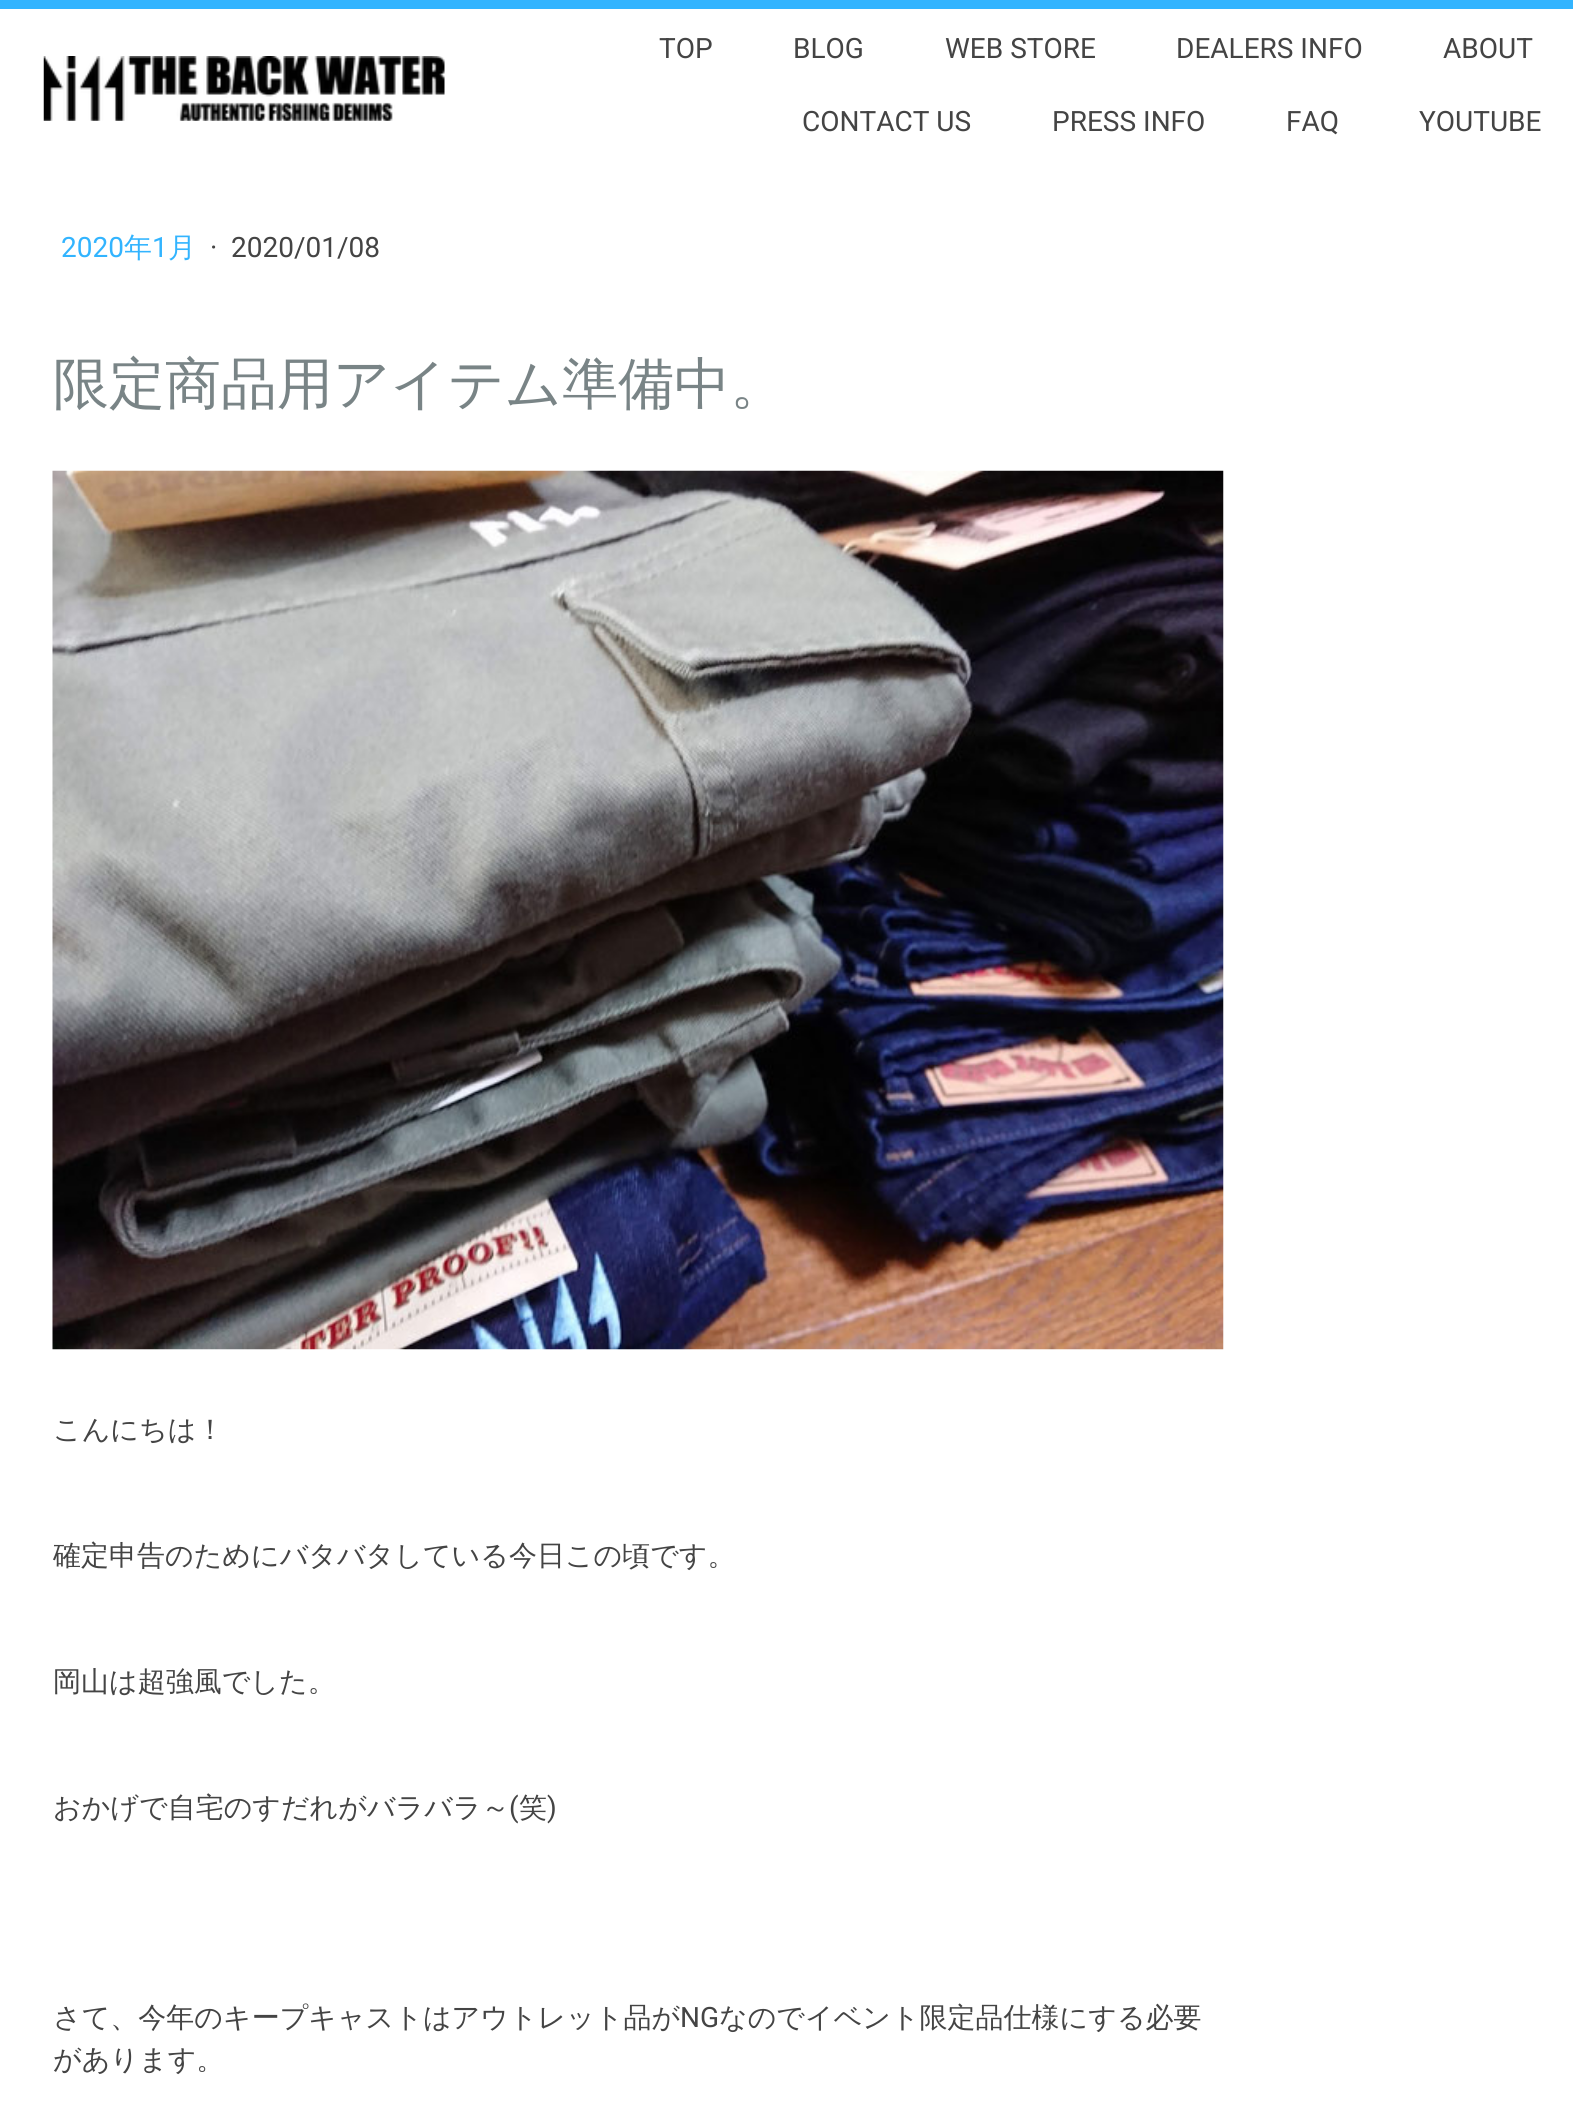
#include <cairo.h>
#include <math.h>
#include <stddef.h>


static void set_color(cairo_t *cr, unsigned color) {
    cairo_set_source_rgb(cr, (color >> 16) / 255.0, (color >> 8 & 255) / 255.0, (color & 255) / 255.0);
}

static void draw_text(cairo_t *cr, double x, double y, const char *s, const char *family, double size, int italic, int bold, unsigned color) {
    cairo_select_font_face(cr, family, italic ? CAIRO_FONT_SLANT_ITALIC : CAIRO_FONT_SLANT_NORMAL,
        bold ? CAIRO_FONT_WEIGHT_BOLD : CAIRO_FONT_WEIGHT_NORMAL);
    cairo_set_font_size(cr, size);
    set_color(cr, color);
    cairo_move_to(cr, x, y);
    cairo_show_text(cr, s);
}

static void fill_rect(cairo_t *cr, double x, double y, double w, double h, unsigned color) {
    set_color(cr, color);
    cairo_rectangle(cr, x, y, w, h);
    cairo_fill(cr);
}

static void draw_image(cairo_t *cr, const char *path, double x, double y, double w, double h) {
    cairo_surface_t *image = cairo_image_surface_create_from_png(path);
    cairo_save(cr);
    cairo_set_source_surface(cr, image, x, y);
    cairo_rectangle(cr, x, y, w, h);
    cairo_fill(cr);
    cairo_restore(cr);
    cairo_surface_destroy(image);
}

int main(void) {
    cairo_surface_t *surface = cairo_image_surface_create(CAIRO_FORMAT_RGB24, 1573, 2103);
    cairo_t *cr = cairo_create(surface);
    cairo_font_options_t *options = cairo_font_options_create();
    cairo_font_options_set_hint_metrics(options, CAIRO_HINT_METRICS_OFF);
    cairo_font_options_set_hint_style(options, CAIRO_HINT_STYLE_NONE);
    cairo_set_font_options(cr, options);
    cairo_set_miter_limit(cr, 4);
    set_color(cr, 0xFFFFFF);
    cairo_paint(cr);
    fill_rect(cr, 0, 0, 1573, 9, 0x32B4FF);
    draw_image(cr, "assets/img1.png", 43, 56, 402, 65);
    draw_text(cr, 659, 58, "TOP", "Roboto", 28, 0, 0, 0x444444);
    draw_text(cr, 793, 58, "BLOG", "Roboto", 28, 0, 0, 0x444444);
    draw_text(cr, 945, 58, "WEB STORE", "Roboto", 28, 0, 0, 0x444444);
    draw_text(cr, 1176, 58, "DEALERS INFO", "Roboto", 28, 0, 0, 0x444444);
    draw_text(cr, 1443, 58, "ABOUT", "Roboto", 28, 0, 0, 0x444444);
    draw_text(cr, 802, 131, "CONTACT US", "Roboto", 28, 0, 0, 0x444444);
    draw_text(cr, 1052, 131, "PRESS INFO", "Roboto", 28, 0, 0, 0x444444);
    draw_text(cr, 1286, 131, "FAQ", "Roboto", 28, 0, 0, 0x444444);
    draw_text(cr, 1419, 131, "YOUTUBE", "Roboto", 28, 0, 0, 0x444444);
    draw_text(cr, 61, 257, "2020", "Roboto", 28, 0, 0, 0x32B4FF);
    draw_text(cr, 124, 257, "年", "WenQuanYi Zen Hei Medium", 28, 0, 0, 0x32B4FF);
    draw_text(cr, 152, 257, "1", "Roboto", 28, 0, 0, 0x32B4FF);
    draw_text(cr, 168, 257, "月", "WenQuanYi Zen Hei Medium", 28, 0, 0, 0x32B4FF);
    draw_text(cr, 210, 257, "·", "Roboto", 28, 0, 0, 0x444444);
    draw_text(cr, 231, 257, "2020/01/08", "Roboto", 28, 0, 0, 0x444444);
    draw_text(cr, 53, 403, "限定商品用アイテム準備中。", "WenQuanYi Zen Hei Medium", 56, 0, 0, 0x798486);
    draw_image(cr, "assets/img2.png", 52, 470, 1172, 880);
    draw_text(cr, 53, 1439, "こんにちは！", "WenQuanYi Zen Hei Medium", 28, 0, 0, 0x444444);
    draw_text(cr, 53, 1565, "確定申告のためにバタバタしている今日この頃です。", "WenQuanYi Zen Hei Medium", 28, 0, 0, 0x444444);
    draw_text(cr, 53, 1691, "岡山は超強風でした。", "WenQuanYi Zen Hei Medium", 28, 0, 0, 0x444444);
    draw_text(cr, 53, 1817, "おかげで自宅のすだれがバラバラ～", "WenQuanYi Zen Hei Medium", 28, 0, 0, 0x444444);
    draw_text(cr, 509, 1817, "(", "Roboto", 28, 0, 0, 0x444444);
    draw_text(cr, 519, 1817, "笑", "WenQuanYi Zen Hei Medium", 28, 0, 0, 0x444444);
    draw_text(cr, 547, 1817, ")", "Roboto", 28, 0, 0, 0x444444);
    draw_text(cr, 53, 2027, "さて、今年のキープキャストはアウトレット品が", "WenQuanYi Zen Hei Medium", 28, 0, 0, 0x444444);
    draw_text(cr, 680, 2027, "NG", "Roboto", 28, 0, 0, 0x444444);
    draw_text(cr, 719, 2027, "なのでイベント限定品仕様にする必要", "WenQuanYi Zen Hei Medium", 28, 0, 0, 0x444444);
    draw_text(cr, 53, 2069, "があります。", "WenQuanYi Zen Hei Medium", 28, 0, 0, 0x444444);
    cairo_surface_write_to_png(surface, "output.png");
    cairo_font_options_destroy(options);
    cairo_destroy(cr);
    cairo_surface_destroy(surface);
    return 0;
}
